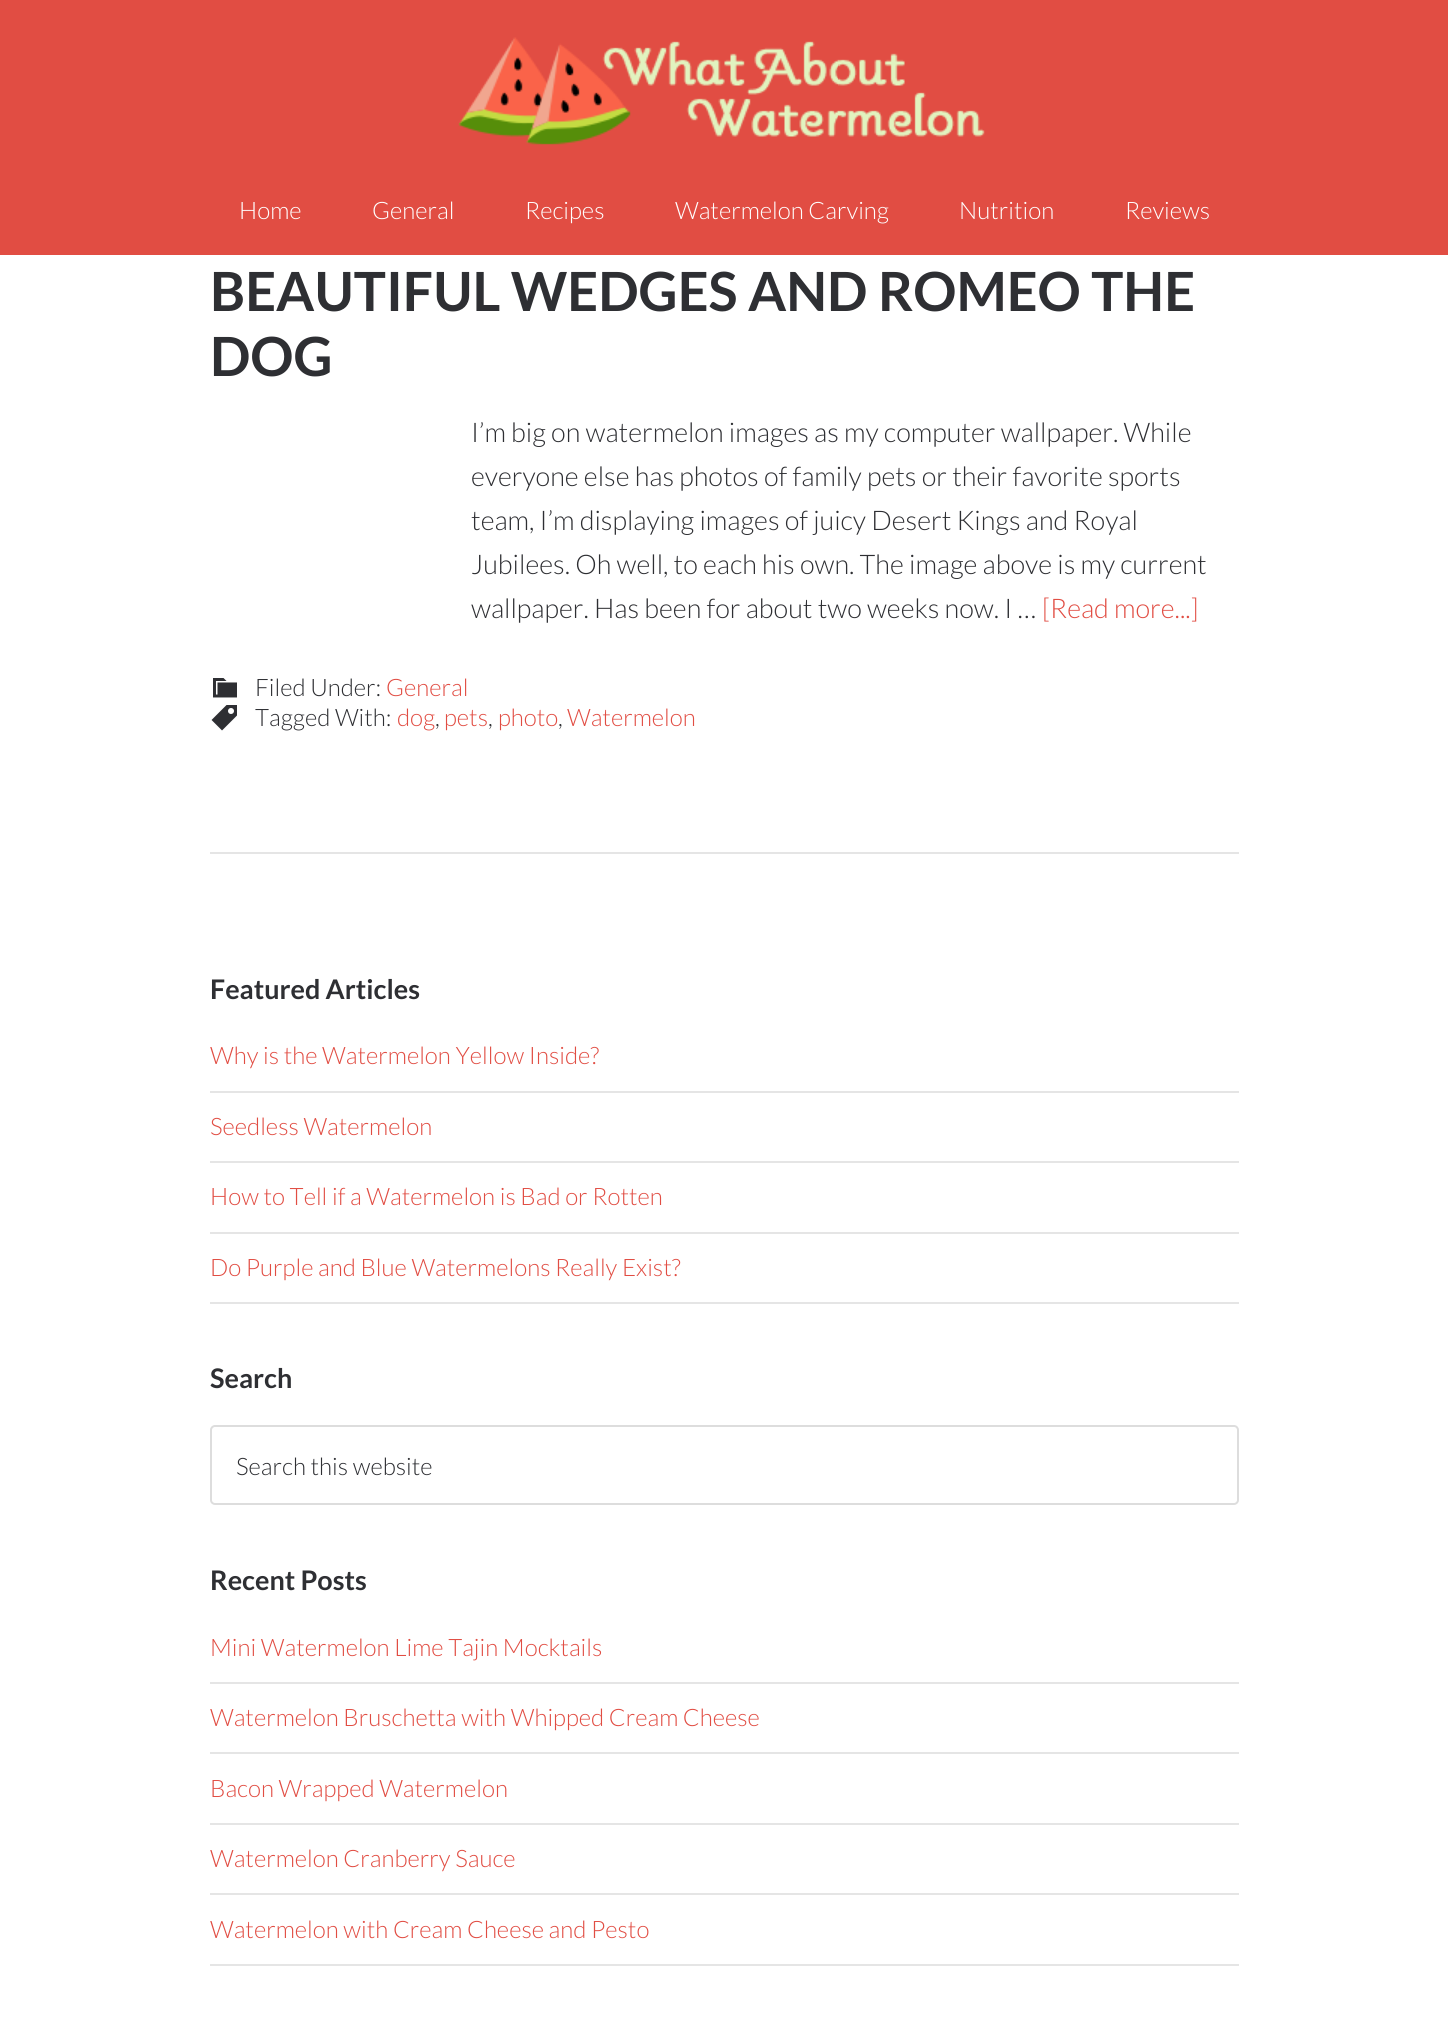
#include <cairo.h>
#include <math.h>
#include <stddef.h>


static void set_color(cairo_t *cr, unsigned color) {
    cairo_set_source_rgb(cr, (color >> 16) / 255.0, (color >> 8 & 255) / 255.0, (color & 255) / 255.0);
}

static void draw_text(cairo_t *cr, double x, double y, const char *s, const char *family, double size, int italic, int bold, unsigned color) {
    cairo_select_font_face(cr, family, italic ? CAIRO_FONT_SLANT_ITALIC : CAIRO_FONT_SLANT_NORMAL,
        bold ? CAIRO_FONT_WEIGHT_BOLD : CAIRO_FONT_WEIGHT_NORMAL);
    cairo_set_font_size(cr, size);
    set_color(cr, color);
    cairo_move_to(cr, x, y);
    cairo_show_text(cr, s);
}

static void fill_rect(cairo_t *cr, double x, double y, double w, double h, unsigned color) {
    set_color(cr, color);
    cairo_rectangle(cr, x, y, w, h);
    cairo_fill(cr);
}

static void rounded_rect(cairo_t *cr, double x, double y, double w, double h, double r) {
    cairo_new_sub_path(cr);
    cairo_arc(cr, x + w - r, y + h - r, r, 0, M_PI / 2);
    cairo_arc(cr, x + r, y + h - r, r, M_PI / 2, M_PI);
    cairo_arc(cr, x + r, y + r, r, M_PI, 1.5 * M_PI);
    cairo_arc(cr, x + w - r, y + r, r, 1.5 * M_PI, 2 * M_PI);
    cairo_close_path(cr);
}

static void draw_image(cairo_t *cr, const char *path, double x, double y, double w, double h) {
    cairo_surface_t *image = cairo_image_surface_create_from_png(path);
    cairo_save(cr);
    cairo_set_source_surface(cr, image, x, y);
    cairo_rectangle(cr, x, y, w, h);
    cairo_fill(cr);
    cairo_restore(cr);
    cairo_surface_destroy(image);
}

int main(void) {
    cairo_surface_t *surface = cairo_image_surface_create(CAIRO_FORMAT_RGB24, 1448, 2035);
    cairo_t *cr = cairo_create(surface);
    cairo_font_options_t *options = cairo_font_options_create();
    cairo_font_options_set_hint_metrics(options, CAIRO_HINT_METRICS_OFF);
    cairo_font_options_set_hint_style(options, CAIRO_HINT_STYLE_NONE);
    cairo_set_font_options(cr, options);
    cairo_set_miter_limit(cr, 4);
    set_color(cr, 0xFFFFFF);
    cairo_paint(cr);
    fill_rect(cr, 0, 0, 1448, 255, 0xE14D43);
    draw_image(cr, "assets/img1.png", 458, 37, 527, 108);
    draw_text(cr, 239, 219, "Home", "Lato Light", 24, 0, 0, 0xFFFFFF);
    draw_text(cr, 372, 219, "General", "Lato Light", 24, 0, 0, 0xFFFFFF);
    draw_text(cr, 525, 219, "Recipes", "Lato Light", 24, 0, 0, 0xFFFFFF);
    draw_text(cr, 675, 219, "Watermelon Carving", "Lato Light", 24, 0, 0, 0xFFFFFF);
    draw_text(cr, 959, 219, "Nutrition", "Lato Light", 24, 0, 0, 0xFFFFFF);
    draw_text(cr, 1125, 219, "Reviews", "Lato Light", 24, 0, 0, 0xFFFFFF);
    fill_rect(cr, 210, 852, 1029, 2, 0xE5E5E5);
    draw_text(cr, 210, 311, "BEAUTIFUL WEDGES AND ROMEO THE", "Lato", 54, 0, 1, 0x2E2F33);
    draw_text(cr, 210, 376, "DOG", "Lato", 54, 0, 1, 0x2E2F33);
    draw_text(cr, 471, 442, "I’m big on watermelon images as my computer wallpaper. While", "Lato Light", 27, 0, 0, 0x2E2F33);
    draw_text(cr, 471, 486, "everyone else has photos of family pets or their favorite sports", "Lato Light", 27, 0, 0, 0x2E2F33);
    draw_text(cr, 471, 530, "team, I’m displaying images of juicy Desert Kings and Royal", "Lato Light", 27, 0, 0, 0x2E2F33);
    draw_text(cr, 471, 574, "Jubilees. Oh well, to each his own. The image above is my current", "Lato Light", 27, 0, 0, 0x2E2F33);
    draw_text(cr, 471, 618, "wallpaper. Has been for about two weeks now. I …", "Lato Light", 27, 0, 0, 0x2E2F33);
    draw_text(cr, 1042, 618, "[Read more...]", "Lato Light", 27, 0, 0, 0xE14D43);
    draw_image(cr, "assets/img2.png", 213, 678, 24, 20);
    draw_text(cr, 255, 696, "Filed Under:", "Lato Light", 24, 0, 0, 0x2E2F33);
    draw_text(cr, 386, 696, "General", "Lato Light", 24, 0, 0, 0xE14D43);
    draw_image(cr, "assets/img3.png", 211, 705, 26, 26);
    draw_text(cr, 255, 726, "Tagged With:", "Lato Light", 24, 0, 0, 0x2E2F33);
    draw_text(cr, 397, 726, "dog", "Lato Light", 24, 0, 0, 0xE14D43);
    draw_text(cr, 435, 726, ",", "Lato Light", 24, 0, 0, 0x2E2F33);
    draw_text(cr, 444, 726, "pets", "Lato Light", 24, 0, 0, 0xE14D43);
    draw_text(cr, 488, 726, ",", "Lato Light", 24, 0, 0, 0x2E2F33);
    draw_text(cr, 498, 726, "photo", "Lato Light", 24, 0, 0, 0xE14D43);
    draw_text(cr, 558, 726, ",", "Lato Light", 24, 0, 0, 0x2E2F33);
    draw_text(cr, 567, 726, "Watermelon", "Lato Light", 24, 0, 0, 0xE14D43);
    draw_text(cr, 210, 999, "Featured Articles", "Lato", 27, 0, 1, 0x2E2F33);
    fill_rect(cr, 210, 1091, 1029, 2, 0xE5E5E5);
    draw_text(cr, 210, 1064, "Why is the Watermelon Yellow Inside?", "Lato Light", 24, 0, 0, 0xE14D43);
    fill_rect(cr, 210, 1161, 1029, 2, 0xE5E5E5);
    draw_text(cr, 210, 1135, "Seedless Watermelon", "Lato Light", 24, 0, 0, 0xE14D43);
    fill_rect(cr, 210, 1232, 1029, 2, 0xE5E5E5);
    draw_text(cr, 210, 1205, "How to Tell if a Watermelon is Bad or Rotten", "Lato Light", 24, 0, 0, 0xE14D43);
    fill_rect(cr, 210, 1302, 1029, 2, 0xE5E5E5);
    draw_text(cr, 210, 1276, "Do Purple and Blue Watermelons Really Exist?", "Lato Light", 24, 0, 0, 0xE14D43);
    draw_text(cr, 210, 1388, "Search", "Lato", 27, 0, 1, 0x2E2F33);
    rounded_rect(cr, 211, 1426, 1027, 78, 4);
    set_color(cr, 0xDDDDDD);
    cairo_stroke(cr);
    draw_text(cr, 236, 1475, "Search this website", "Lato Light", 24, 0, 0, 0x2E2F33);
    draw_text(cr, 210, 1590, "Recent Posts", "Lato", 27, 0, 1, 0x2E2F33);
    fill_rect(cr, 210, 1682, 1029, 2, 0xE5E5E5);
    draw_text(cr, 210, 1656, "Mini Watermelon Lime Tajin Mocktails", "Lato Light", 24, 0, 0, 0xE14D43);
    fill_rect(cr, 210, 1752, 1029, 2, 0xE5E5E5);
    draw_text(cr, 210, 1726, "Watermelon Bruschetta with Whipped Cream Cheese", "Lato Light", 24, 0, 0, 0xE14D43);
    fill_rect(cr, 210, 1823, 1029, 2, 0xE5E5E5);
    draw_text(cr, 210, 1797, "Bacon Wrapped Watermelon", "Lato Light", 24, 0, 0, 0xE14D43);
    fill_rect(cr, 210, 1893, 1029, 2, 0xE5E5E5);
    draw_text(cr, 210, 1867, "Watermelon Cranberry Sauce", "Lato Light", 24, 0, 0, 0xE14D43);
    fill_rect(cr, 210, 1964, 1029, 2, 0xE5E5E5);
    draw_text(cr, 210, 1938, "Watermelon with Cream Cheese and Pesto", "Lato Light", 24, 0, 0, 0xE14D43);
    cairo_surface_write_to_png(surface, "output.png");
    cairo_font_options_destroy(options);
    cairo_destroy(cr);
    cairo_surface_destroy(surface);
    return 0;
}
